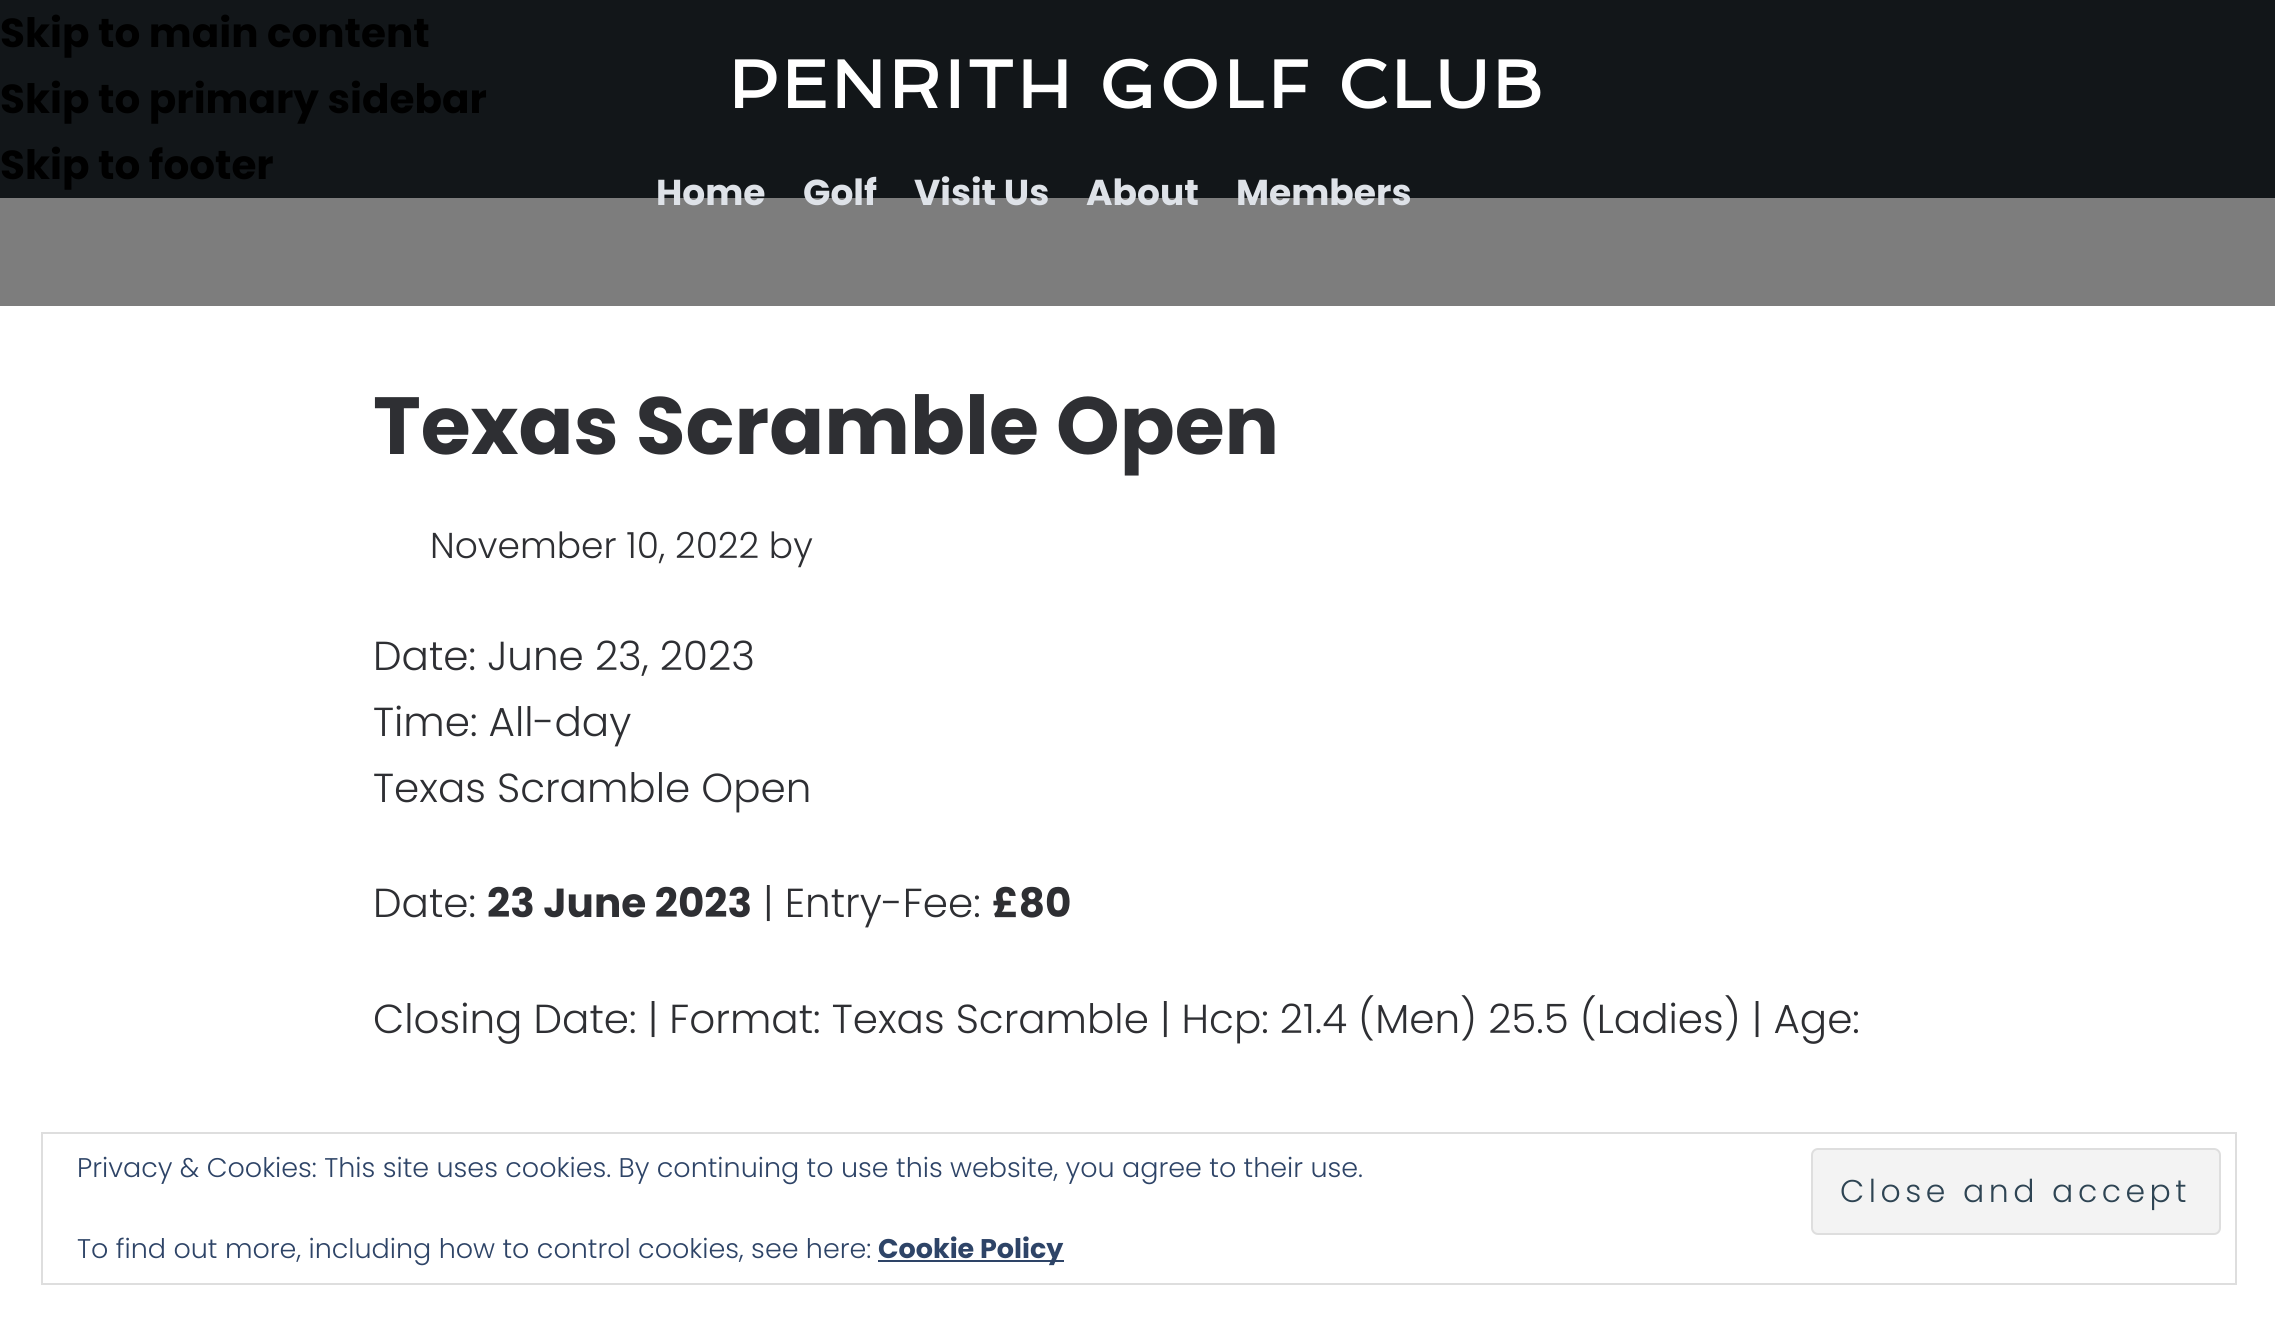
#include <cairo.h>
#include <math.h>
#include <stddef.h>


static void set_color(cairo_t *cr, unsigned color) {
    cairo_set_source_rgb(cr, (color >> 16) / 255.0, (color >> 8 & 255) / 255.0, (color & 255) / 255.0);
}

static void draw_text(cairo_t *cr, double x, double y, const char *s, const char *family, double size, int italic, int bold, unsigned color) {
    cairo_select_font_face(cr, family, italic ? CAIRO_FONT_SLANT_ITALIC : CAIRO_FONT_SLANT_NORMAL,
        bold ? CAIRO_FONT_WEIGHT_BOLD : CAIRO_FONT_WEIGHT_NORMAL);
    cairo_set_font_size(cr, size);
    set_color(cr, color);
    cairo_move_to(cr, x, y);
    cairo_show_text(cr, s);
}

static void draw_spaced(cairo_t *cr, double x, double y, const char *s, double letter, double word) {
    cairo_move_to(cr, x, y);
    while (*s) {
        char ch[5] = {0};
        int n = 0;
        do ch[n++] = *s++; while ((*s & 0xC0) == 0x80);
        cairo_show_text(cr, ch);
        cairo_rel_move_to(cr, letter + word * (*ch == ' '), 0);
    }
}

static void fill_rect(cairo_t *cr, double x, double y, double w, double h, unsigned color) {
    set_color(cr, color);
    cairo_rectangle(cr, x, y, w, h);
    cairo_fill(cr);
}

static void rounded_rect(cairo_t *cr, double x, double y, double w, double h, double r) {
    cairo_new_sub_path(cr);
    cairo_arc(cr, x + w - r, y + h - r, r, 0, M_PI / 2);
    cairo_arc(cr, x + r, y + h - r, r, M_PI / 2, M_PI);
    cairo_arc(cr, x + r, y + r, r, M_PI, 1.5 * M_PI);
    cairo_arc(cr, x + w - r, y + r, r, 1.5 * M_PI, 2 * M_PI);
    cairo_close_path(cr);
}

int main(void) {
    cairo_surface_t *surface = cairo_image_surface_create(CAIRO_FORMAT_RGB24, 2275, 1324);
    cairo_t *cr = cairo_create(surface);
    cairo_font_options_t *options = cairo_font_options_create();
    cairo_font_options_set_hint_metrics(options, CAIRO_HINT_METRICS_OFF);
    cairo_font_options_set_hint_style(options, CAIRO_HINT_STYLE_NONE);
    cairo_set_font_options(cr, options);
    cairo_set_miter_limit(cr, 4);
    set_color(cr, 0x121619);
    cairo_paint(cr);
    draw_text(cr, 0, 47, "Skip to main content", "Poppins", 40.5, 0, 1, 0x000000);
    draw_text(cr, 0, 113, "Skip to primary sidebar", "Poppins", 40.5, 0, 1, 0x000000);
    draw_text(cr, 0, 179, "Skip to footer", "Poppins", 40.5, 0, 1, 0x000000);
    cairo_select_font_face(cr, "Spinnaker", CAIRO_FONT_SLANT_NORMAL, CAIRO_FONT_WEIGHT_BOLD);
    cairo_set_font_size(cr, 67.5);
    set_color(cr, 0xFFFFFF);
    draw_spaced(cr, 729, 108, "PENRITH GOLF CLUB", 4.5, 0);
    fill_rect(cr, 0, 198, 2275, 108, 0x7D7D7D);
    draw_text(cr, 656, 205, "Home", "Poppins", 36, 0, 1, 0xDEE2E8);
    draw_text(cr, 803, 205, "Golf", "Poppins", 36, 0, 1, 0xDEE2E8);
    draw_text(cr, 914, 205, "Visit Us", "Poppins", 36, 0, 1, 0xDEE2E8);
    draw_text(cr, 1086, 205, "About", "Poppins", 36, 0, 1, 0xDEE2E8);
    draw_text(cr, 1236, 205, "Members", "Poppins", 36, 0, 1, 0xDEE2E8);
    fill_rect(cr, 0, 306, 2275, 1018, 0xFFFFFF);
    draw_text(cr, 373, 454, "Texas Scramble Open", "Poppins", 81, 0, 1, 0x2E2F33);
    draw_text(cr, 430, 558, "November 10, 2022 by", "Poppins Light", 36, 0, 0, 0x2E2F33);
    draw_text(cr, 373, 670, "Date: June 23, 2023", "Poppins Light", 40.5, 0, 0, 0x2E2F33);
    draw_text(cr, 373, 736, "Time: All-day", "Poppins Light", 40.5, 0, 0, 0x2E2F33);
    draw_text(cr, 373, 802, "Texas Scramble Open", "Poppins Light", 40.5, 0, 0, 0x2E2F33);
    draw_text(cr, 373, 917, "Date:", "Poppins Light", 40.5, 0, 0, 0x2E2F33);
    draw_text(cr, 487, 917, "23 June 2023", "Poppins", 40.5, 0, 1, 0x2E2F33);
    draw_text(cr, 763, 917, "| Entry-Fee:", "Poppins Light", 40.5, 0, 0, 0x2E2F33);
    draw_text(cr, 992, 917, "£80", "Poppins", 40.5, 0, 1, 0x2E2F33);
    draw_text(cr, 373, 1033, "Closing Date: | Format: Texas Scramble | Hcp: 21.4 (Men) 25.5 (Ladies) | Age:", "Poppins Light", 40.5, 0, 0, 0x2E2F33);
    cairo_rectangle(cr, 42, 1133, 2194, 151);
    set_color(cr, 0xDEDEDE);
    cairo_stroke(cr);
    draw_text(cr, 77, 1177, "Privacy & Cookies: This site uses cookies. By continuing to use this website, you agree to their use.", "Poppins Light", 27, 0, 0, 0x2E4467);
    set_color(cr, 0xF3F3F3);
    rounded_rect(cr, 1812, 1149, 408, 85, 6);
    cairo_fill_preserve(cr);
    set_color(cr, 0xDEDEDE);
    cairo_stroke(cr);
    cairo_set_font_size(cr, 31.5);
    set_color(cr, 0x2E4453);
    draw_spaced(cr, 1840, 1202, "Close and accept", 4.5, 0);
    draw_text(cr, 77, 1258, "To find out more, including how to control cookies, see here:", "Poppins Light", 27, 0, 0, 0x2E4467);
    fill_rect(cr, 878, 1260, 186, 2, 0x2E4467);
    draw_text(cr, 878, 1258, "Cookie Policy", "Poppins", 27, 0, 1, 0x2E4467);
    cairo_surface_write_to_png(surface, "output.png");
    cairo_font_options_destroy(options);
    cairo_destroy(cr);
    cairo_surface_destroy(surface);
    return 0;
}
